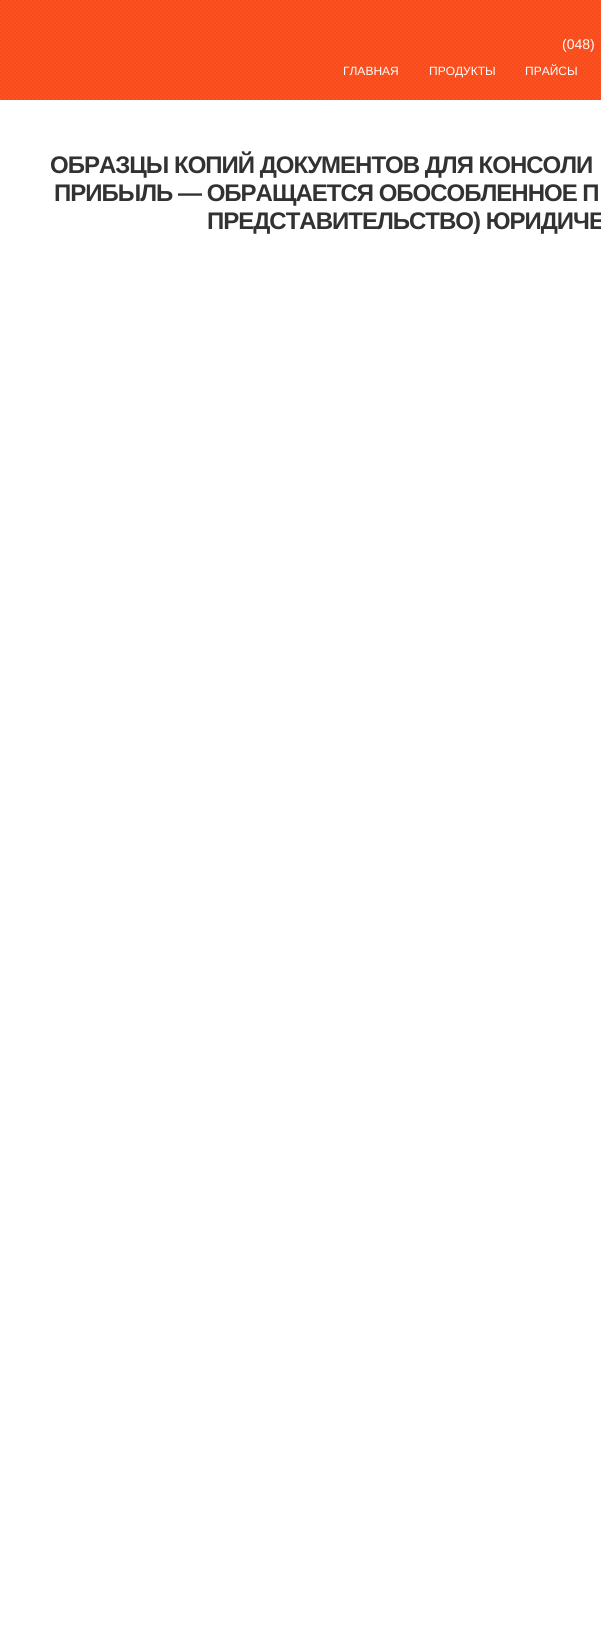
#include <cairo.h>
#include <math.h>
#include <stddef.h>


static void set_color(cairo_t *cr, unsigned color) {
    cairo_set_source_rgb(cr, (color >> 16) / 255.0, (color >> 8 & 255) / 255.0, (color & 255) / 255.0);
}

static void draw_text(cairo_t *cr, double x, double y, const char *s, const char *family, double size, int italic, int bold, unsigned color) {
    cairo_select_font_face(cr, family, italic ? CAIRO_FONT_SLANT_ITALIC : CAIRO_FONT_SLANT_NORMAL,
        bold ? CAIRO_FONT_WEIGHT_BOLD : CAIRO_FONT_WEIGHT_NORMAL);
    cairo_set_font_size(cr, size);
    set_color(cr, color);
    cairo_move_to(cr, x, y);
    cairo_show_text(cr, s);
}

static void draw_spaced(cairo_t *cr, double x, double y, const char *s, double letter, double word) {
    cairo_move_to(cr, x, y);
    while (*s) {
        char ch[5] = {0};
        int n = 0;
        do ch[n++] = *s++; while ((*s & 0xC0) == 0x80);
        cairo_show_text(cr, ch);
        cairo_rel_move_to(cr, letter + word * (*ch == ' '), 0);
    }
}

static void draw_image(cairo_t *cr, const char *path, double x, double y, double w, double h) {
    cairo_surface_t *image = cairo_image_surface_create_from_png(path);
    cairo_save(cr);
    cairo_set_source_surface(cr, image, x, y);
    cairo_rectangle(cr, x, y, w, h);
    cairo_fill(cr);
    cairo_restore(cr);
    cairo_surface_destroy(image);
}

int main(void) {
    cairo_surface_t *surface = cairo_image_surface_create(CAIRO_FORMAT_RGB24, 601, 1634);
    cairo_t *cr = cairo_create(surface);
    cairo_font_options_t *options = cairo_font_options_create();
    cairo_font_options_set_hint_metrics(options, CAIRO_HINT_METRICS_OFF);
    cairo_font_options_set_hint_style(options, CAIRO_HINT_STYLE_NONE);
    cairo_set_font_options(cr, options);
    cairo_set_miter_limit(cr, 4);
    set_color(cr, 0xFFFFFF);
    cairo_paint(cr);
    draw_image(cr, "assets/img1.png", 0, 0, 601, 100);
    draw_text(cr, 562, 49, "(048)", "Liberation Sans", 14, 0, 0, 0xFFFFFF);
    draw_text(cr, 343, 75, "ГЛАВНАЯ", "Liberation Sans", 12, 0, 0, 0xFFFFFF);
    draw_text(cr, 429, 75, "ПРОДУКТЫ", "Liberation Sans", 12, 0, 0, 0xFFFFFF);
    draw_text(cr, 525, 75, "ПРАЙСЫ", "Liberation Sans", 12, 0, 0, 0xFFFFFF);
    cairo_select_font_face(cr, "Liberation Sans", CAIRO_FONT_SLANT_NORMAL, CAIRO_FONT_WEIGHT_BOLD);
    cairo_set_font_size(cr, 24);
    set_color(cr, 0x323232);
    draw_spaced(cr, 50, 173, "ОБРАЗЦЫ КОПИЙ ДОКУМЕНТОВ ДЛЯ КОНСОЛИ", -1, 0);
    draw_spaced(cr, 54, 201, "ПРИБЫЛЬ — ОБРАЩАЕТСЯ ОБОСОБЛЕННОЕ П", -1, 0);
    draw_spaced(cr, 207, 229, "ПРЕДСТАВИТЕЛЬСТВО) ЮРИДИЧЕ", -1, 0);
    cairo_surface_write_to_png(surface, "output.png");
    cairo_font_options_destroy(options);
    cairo_destroy(cr);
    cairo_surface_destroy(surface);
    return 0;
}
